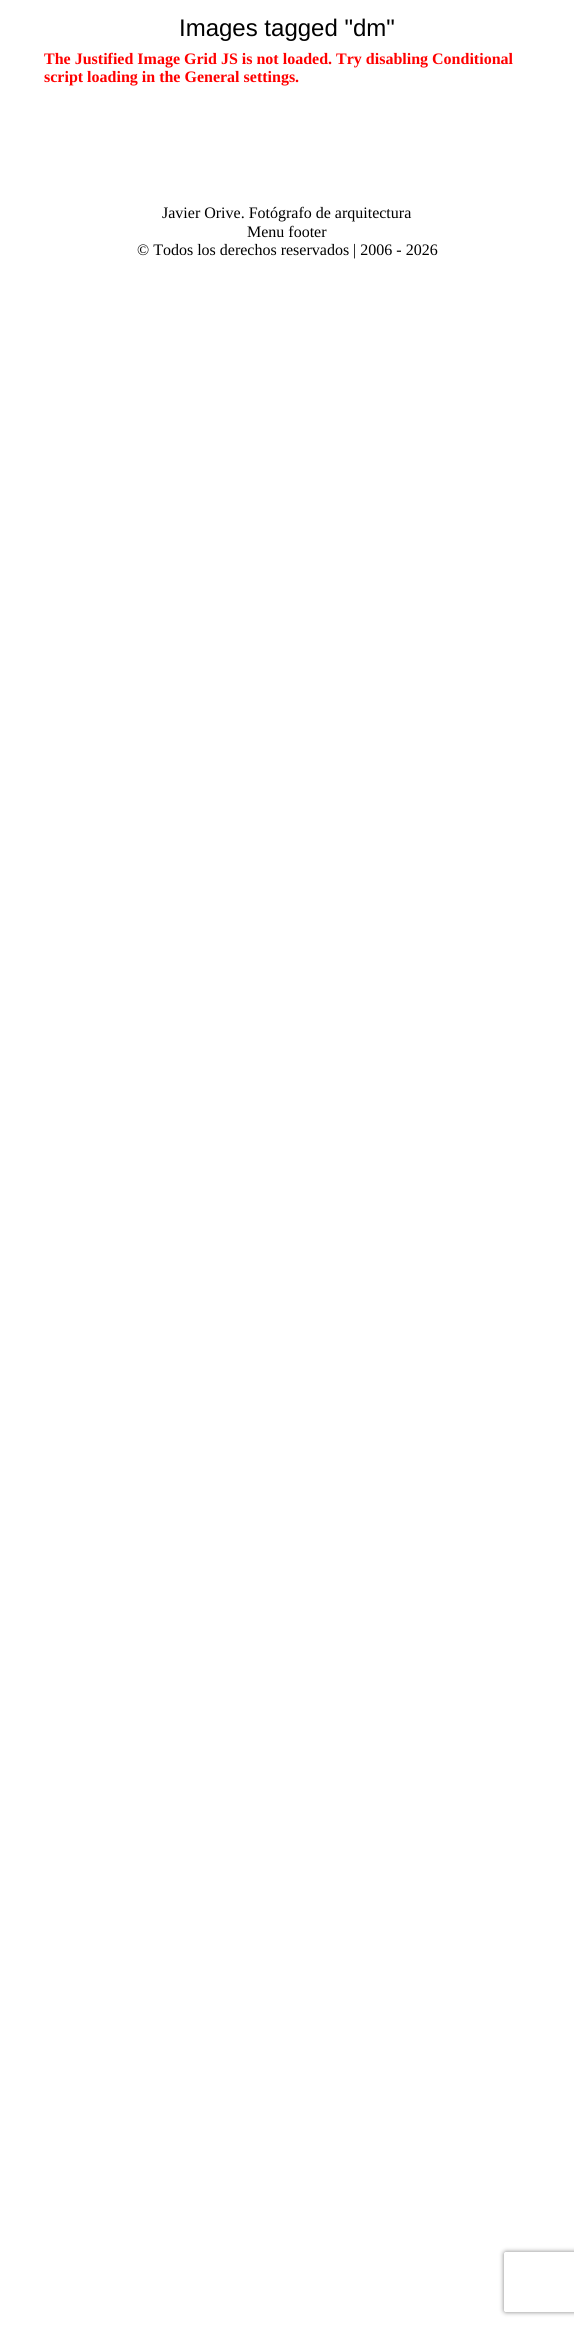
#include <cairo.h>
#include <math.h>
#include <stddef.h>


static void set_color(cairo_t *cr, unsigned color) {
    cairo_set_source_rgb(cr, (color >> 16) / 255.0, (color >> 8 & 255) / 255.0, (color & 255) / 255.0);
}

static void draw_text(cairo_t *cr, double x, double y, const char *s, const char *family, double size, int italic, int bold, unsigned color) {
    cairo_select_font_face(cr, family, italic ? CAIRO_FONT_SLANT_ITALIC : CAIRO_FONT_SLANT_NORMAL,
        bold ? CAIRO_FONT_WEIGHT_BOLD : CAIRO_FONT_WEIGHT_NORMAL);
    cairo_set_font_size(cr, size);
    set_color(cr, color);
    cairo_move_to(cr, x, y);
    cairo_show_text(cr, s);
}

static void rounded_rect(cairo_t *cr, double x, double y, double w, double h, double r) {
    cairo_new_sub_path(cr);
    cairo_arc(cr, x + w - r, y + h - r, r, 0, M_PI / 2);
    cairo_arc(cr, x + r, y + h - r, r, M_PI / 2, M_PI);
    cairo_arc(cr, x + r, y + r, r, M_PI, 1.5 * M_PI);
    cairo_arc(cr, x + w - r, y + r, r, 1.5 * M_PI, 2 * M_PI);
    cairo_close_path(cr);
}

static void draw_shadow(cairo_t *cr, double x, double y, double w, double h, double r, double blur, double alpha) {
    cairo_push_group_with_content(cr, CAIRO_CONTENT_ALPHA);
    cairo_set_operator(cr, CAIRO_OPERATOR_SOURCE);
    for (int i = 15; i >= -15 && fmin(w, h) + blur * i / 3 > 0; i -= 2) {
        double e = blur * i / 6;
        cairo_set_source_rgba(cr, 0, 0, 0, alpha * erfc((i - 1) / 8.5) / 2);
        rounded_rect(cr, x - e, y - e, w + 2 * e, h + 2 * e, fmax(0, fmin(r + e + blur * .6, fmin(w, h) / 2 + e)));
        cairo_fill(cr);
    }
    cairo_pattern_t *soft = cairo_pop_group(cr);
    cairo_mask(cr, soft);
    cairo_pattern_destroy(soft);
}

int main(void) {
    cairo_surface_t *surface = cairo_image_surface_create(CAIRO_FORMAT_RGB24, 574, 2326);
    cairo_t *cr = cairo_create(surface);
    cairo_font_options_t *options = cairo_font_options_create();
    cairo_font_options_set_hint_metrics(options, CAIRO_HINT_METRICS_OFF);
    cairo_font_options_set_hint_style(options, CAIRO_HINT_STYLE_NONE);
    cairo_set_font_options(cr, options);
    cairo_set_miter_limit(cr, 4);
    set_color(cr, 0xFFFFFF);
    cairo_paint(cr);
    draw_text(cr, 179, 36, "Images tagged \"dm\"", "Liberation Sans", 24, 0, 0, 0x000000);
    draw_text(cr, 44, 64, "The Justified Image Grid JS is not loaded. Try disabling Conditional", "Liberation Serif", 16, 0, 1, 0xFF0000);
    draw_text(cr, 44, 82, "script loading in the General settings.", "Liberation Serif", 16, 0, 1, 0xFF0000);
    draw_text(cr, 162, 218, "Javier Orive. Fotógrafo de arquitectura", "Liberation Serif", 16, 0, 0, 0x000000);
    draw_text(cr, 247, 237, "Menu footer", "Liberation Serif", 16, 0, 0, 0x000000);
    draw_text(cr, 137, 255, "© Todos los derechos reservados | 2006 - 2026", "Liberation Serif", 16, 0, 0, 0x000000);
    cairo_save(cr);
    cairo_set_fill_rule(cr, CAIRO_FILL_RULE_EVEN_ODD);
    cairo_new_path(cr);
    cairo_move_to(cr, 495, 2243);
    cairo_line_to(cr, 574, 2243);
    cairo_line_to(cr, 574, 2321);
    cairo_line_to(cr, 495, 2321);
    cairo_close_path(cr);
    cairo_move_to(cr, 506, 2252);
    cairo_line_to(cr, 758, 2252);
    cairo_curve_to(cr, 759, 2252, 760, 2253, 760, 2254);
    cairo_line_to(cr, 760, 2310);
    cairo_curve_to(cr, 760, 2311, 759, 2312, 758, 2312);
    cairo_line_to(cr, 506, 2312);
    cairo_curve_to(cr, 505, 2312, 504, 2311, 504, 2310);
    cairo_line_to(cr, 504, 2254);
    cairo_curve_to(cr, 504, 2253, 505, 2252, 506, 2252);
    cairo_close_path(cr);
    cairo_clip(cr);
    set_color(cr, 0x808080);
    draw_shadow(cr, 504, 2252, 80, 60, 2, 2.5, 1);
    cairo_restore(cr);
    cairo_surface_write_to_png(surface, "output.png");
    cairo_font_options_destroy(options);
    cairo_destroy(cr);
    cairo_surface_destroy(surface);
    return 0;
}
